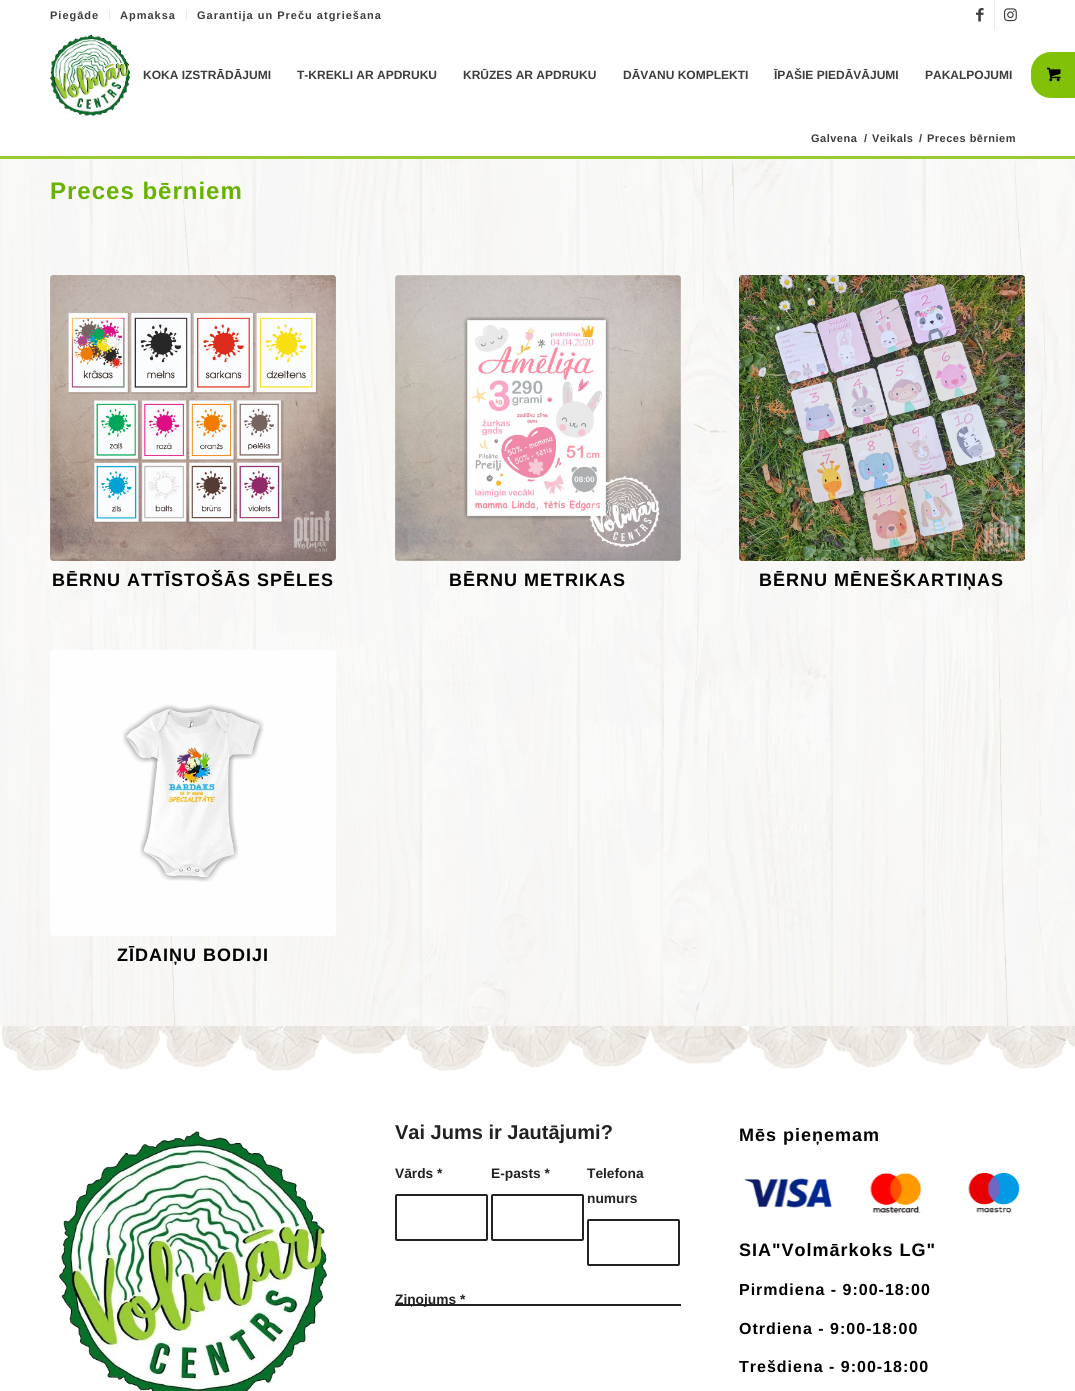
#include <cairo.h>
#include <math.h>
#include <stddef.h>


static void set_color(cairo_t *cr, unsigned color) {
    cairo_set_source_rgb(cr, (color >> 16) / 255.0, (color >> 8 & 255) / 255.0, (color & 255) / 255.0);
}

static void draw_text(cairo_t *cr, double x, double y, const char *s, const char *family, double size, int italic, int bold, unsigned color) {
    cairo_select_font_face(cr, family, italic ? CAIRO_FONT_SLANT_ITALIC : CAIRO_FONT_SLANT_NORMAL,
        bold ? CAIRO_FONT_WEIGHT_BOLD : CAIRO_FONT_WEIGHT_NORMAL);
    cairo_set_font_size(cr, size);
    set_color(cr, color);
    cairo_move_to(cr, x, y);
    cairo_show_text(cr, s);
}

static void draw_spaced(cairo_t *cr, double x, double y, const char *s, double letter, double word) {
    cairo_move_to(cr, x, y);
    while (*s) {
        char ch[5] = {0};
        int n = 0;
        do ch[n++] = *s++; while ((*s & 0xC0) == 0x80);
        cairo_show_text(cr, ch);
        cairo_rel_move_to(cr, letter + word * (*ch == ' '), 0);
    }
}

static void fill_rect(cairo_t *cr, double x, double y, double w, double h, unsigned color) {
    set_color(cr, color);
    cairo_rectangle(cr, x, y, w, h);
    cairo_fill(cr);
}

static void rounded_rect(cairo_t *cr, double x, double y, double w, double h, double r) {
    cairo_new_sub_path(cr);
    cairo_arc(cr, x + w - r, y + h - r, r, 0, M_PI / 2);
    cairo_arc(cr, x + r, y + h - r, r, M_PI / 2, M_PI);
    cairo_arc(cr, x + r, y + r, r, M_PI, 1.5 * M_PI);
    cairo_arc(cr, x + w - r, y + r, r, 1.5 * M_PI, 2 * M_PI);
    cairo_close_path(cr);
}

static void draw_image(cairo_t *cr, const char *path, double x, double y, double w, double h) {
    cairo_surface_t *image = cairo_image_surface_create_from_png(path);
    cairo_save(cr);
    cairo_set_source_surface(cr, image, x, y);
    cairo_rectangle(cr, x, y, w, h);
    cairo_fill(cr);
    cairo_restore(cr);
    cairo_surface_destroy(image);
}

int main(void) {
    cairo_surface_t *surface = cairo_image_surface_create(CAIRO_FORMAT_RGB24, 1075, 1391);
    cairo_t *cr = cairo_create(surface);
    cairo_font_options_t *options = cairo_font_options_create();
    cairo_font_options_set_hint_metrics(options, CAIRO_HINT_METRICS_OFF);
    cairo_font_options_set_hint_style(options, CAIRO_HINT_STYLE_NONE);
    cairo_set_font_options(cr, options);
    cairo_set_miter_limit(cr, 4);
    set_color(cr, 0xFFFFFF);
    cairo_paint(cr);
    fill_rect(cr, 109, 10, 1, 10, 0xEBEBEB);
    cairo_select_font_face(cr, "Liberation Sans", CAIRO_FONT_SLANT_NORMAL, CAIRO_FONT_WEIGHT_BOLD);
    cairo_set_font_size(cr, 11);
    set_color(cr, 0x3D3D3D);
    draw_spaced(cr, 50, 19, "Piegāde", 1, 0);
    fill_rect(cr, 186, 10, 1, 10, 0xEBEBEB);
    set_color(cr, 0x3D3D3D);
    draw_spaced(cr, 120, 19, "Apmaksa", 1, 0);
    draw_spaced(cr, 197, 19, "Garantija un Preču atgriešana", 1, 0);
    fill_rect(cr, 994, 0, 1, 30, 0xEBEBEB);
    draw_image(cr, "assets/img1.png", 976, 8, 8, 14);
    draw_image(cr, "assets/img2.png", 1004, 8, 13, 14);
    draw_image(cr, "assets/img3.png", 50, 34, 80, 83);
    draw_text(cr, 143, 79, "KOKA IZSTRĀDĀJUMI", "Liberation Sans", 12, 0, 1, 0x3D3D3D);
    draw_text(cr, 297, 79, "T-KREKLI AR APDRUKU", "Liberation Sans", 12, 0, 1, 0x3D3D3D);
    draw_text(cr, 463, 79, "KRŪZES AR APDRUKU", "Liberation Sans", 12, 0, 1, 0x3D3D3D);
    draw_text(cr, 623, 79, "DĀVANU KOMPLEKTI", "Liberation Sans", 12, 0, 1, 0x3D3D3D);
    draw_text(cr, 774, 79, "ĪPAŠIE PIEDĀVĀJUMI", "Liberation Sans", 12, 0, 1, 0x3D3D3D);
    draw_text(cr, 925, 79, "PAKALPOJUMI", "Liberation Sans", 12, 0, 1, 0x3D3D3D);
    set_color(cr, 0x81C108);
    cairo_new_path(cr);
    cairo_move_to(cr, 1051, 52);
    cairo_line_to(cr, 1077, 52);
    cairo_line_to(cr, 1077, 98);
    cairo_line_to(cr, 1051, 98);
    cairo_curve_to(cr, 1040, 98, 1031, 89, 1031, 78);
    cairo_line_to(cr, 1031, 72);
    cairo_curve_to(cr, 1031, 61, 1040, 52, 1051, 52);
    cairo_close_path(cr);
    cairo_fill(cr);
    draw_image(cr, "assets/img4.png", 1047, 67, 14, 15);
    fill_rect(cr, 0, 156, 1075, 3, 0x96CC30);
    cairo_set_font_size(cr, 11);
    set_color(cr, 0x3D3D3D);
    draw_spaced(cr, 811, 142, "Galvena", 0.5, 0);
    draw_spaced(cr, 864, 142, "/", 0.5, 0);
    draw_spaced(cr, 872, 142, "Veikals", 0.5, 0);
    draw_spaced(cr, 919, 142, "/", 0.5, 0);
    draw_spaced(cr, 927, 142, "Preces bērniem", 0.5, 0);
    fill_rect(cr, 0, 159, 1075, 867, 0xF7F7F7);
    draw_image(cr, "assets/img5.png", 3, 159, 1072, 867);
    cairo_set_font_size(cr, 24);
    set_color(cr, 0x68B200);
    draw_spaced(cr, 50, 199, "Preces bērniem", 1, 0);
    draw_image(cr, "assets/img6.png", 50, 275, 286, 286);
    cairo_set_font_size(cr, 18);
    set_color(cr, 0x000000);
    draw_spaced(cr, 52, 586, "BĒRNU ATTĪSTOŠĀS SPĒLES", 1, 0);
    draw_image(cr, "assets/img7.png", 395, 275, 286, 286);
    draw_spaced(cr, 449, 586, "BĒRNU METRIKAS", 1, 0);
    draw_image(cr, "assets/img8.png", 739, 275, 286, 286);
    draw_spaced(cr, 759, 586, "BĒRNU MĒNEŠKARTIŅAS", 1, 0);
    draw_image(cr, "assets/img9.png", 50, 650, 286, 286);
    draw_spaced(cr, 117, 961, "ZĪDAIŅU BODIJI", 1, 0);
    draw_image(cr, "assets/img10.png", 1, 1026, 1074, 45);
    draw_image(cr, "assets/img11.png", 59, 1131, 268, 260);
    draw_text(cr, 395, 1139, "Vai Jums ir Jautājumi?", "Liberation Sans", 20, 0, 1, 0x222222);
    draw_text(cr, 395, 1178, "Vārds *", "Liberation Sans", 13.75, 0, 1, 0x222222);
    rounded_rect(cr, 396, 1195, 91, 45, 1);
    cairo_stroke(cr);
    draw_text(cr, 491, 1178, "E-pasts *", "Liberation Sans", 13.75, 0, 1, 0x222222);
    rounded_rect(cr, 492, 1195, 91, 45, 1);
    cairo_stroke(cr);
    draw_text(cr, 587, 1178, "Telefona", "Liberation Sans", 13.75, 0, 1, 0x222222);
    draw_text(cr, 587, 1203, "numurs", "Liberation Sans", 13.75, 0, 1, 0x222222);
    rounded_rect(cr, 588, 1220, 91, 45, 1);
    cairo_stroke(cr);
    cairo_save(cr);
    cairo_rectangle(cr, 395, 1121, 286, 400);
    cairo_clip(cr);
    rounded_rect(cr, 381, 1305, 314, 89, 1);
    cairo_stroke(cr);
    cairo_restore(cr);
    draw_text(cr, 395, 1304, "Ziņojums *", "Liberation Sans", 13.75, 0, 1, 0x222222);
    cairo_set_font_size(cr, 18);
    set_color(cr, 0x000000);
    draw_spaced(cr, 739, 1141, "Mēs pieņemam", 1, 0);
    draw_image(cr, "assets/img12.png", 744, 1173, 276, 40);
    draw_spaced(cr, 739, 1256, "SIA\"Volmārkoks LG\"", 1, 0);
    cairo_set_font_size(cr, 16);
    draw_spaced(cr, 739, 1295, "Pirmdiena - 9:00-18:00", 1, 0);
    draw_spaced(cr, 739, 1334, "Otrdiena - 9:00-18:00", 1, 0);
    draw_spaced(cr, 739, 1372, "Trešdiena - 9:00-18:00", 1, 0);
    cairo_surface_write_to_png(surface, "output.png");
    cairo_font_options_destroy(options);
    cairo_destroy(cr);
    cairo_surface_destroy(surface);
    return 0;
}
